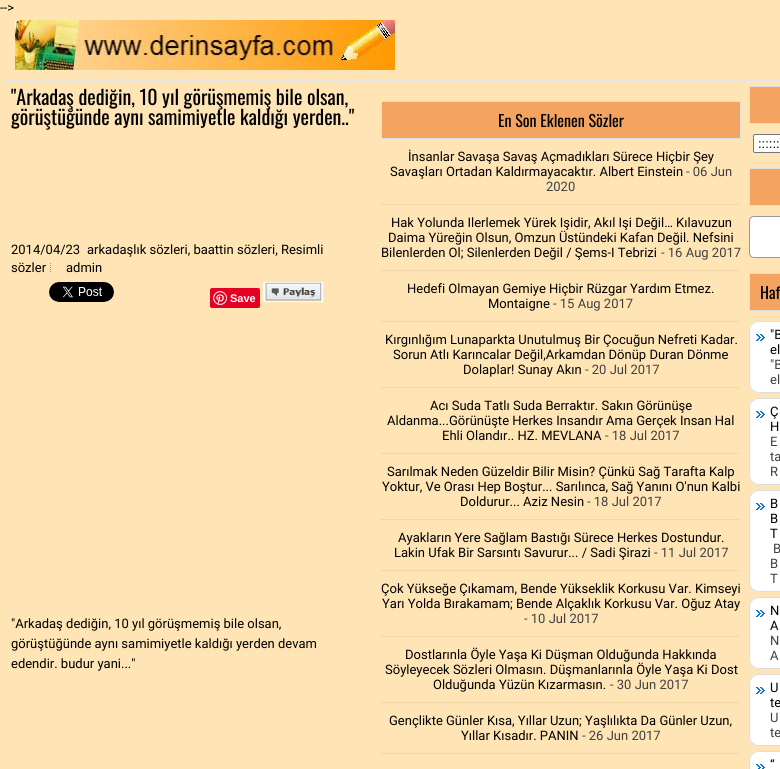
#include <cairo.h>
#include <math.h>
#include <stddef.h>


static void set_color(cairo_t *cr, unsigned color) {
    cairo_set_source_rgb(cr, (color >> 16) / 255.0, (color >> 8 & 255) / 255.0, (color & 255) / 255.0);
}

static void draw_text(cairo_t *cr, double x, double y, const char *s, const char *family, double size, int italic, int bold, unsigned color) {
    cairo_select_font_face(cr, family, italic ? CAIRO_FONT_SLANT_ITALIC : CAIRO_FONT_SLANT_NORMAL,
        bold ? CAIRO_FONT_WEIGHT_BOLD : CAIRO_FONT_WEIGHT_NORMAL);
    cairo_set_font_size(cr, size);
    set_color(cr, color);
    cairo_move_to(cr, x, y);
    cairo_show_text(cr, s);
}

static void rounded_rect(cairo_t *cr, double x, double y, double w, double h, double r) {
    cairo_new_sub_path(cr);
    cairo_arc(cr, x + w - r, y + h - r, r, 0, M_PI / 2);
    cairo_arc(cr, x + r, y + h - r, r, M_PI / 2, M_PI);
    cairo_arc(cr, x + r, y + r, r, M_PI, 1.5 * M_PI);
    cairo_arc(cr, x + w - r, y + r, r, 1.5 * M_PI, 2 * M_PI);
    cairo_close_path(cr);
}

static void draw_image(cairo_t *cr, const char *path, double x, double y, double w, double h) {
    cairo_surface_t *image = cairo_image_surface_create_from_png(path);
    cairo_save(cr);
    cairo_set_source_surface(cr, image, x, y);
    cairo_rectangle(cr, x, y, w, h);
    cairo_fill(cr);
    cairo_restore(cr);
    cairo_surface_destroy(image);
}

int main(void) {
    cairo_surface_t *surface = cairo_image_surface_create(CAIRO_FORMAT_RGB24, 780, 769);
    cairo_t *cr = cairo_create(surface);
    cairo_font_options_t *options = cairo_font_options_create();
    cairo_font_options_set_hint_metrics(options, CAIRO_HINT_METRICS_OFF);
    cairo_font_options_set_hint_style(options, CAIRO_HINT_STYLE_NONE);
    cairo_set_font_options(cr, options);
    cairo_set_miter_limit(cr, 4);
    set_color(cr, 0xFFE4B5);
    cairo_paint(cr);
    draw_text(cr, 0, 12, "-->", "Roboto", 13, 0, 0, 0x000000);
    draw_image(cr, "assets/img1.png", 15, 20, 380, 50);
    cairo_rectangle(cr, 5.5, 80.5, 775, 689);
    set_color(cr, 0xE5E5E5);
    cairo_set_line_width(cr, 1);
    cairo_stroke(cr);
    draw_text(cr, 11, 105, "\"Arkadaş dediğin, 10 yıl görüşmemiş bile olsan,", "Oswald", 20, 0, 0, 0x000000);
    draw_text(cr, 11, 125, "görüştüğünde aynı samimiyetle kaldığı yerden..\"", "Oswald", 20, 0, 0, 0x000000);
    draw_text(cr, 11, 254, "2014/04/23", "Roboto", 13, 0, 0, 0x000000);
    draw_text(cr, 87, 254, "arkadaşlık sözleri, baattin sözleri, Resimli", "Roboto", 13, 0, 0, 0x000000);
    draw_text(cr, 11, 272, "sözler", "Roboto", 13, 0, 0, 0x000000);
    draw_image(cr, "assets/img2.png", 50, 263, 1, 9);
    draw_text(cr, 66, 272, "admin", "Roboto", 13, 0, 0, 0x000000);
    draw_image(cr, "assets/img3.png", 49, 282, 65, 20);
    set_color(cr, 0xE60023);
    rounded_rect(cr, 210, 288, 50, 20, 2);
    cairo_fill(cr);
    draw_image(cr, "assets/img4.png", 213, 291, 14, 14);
    draw_text(cr, 230, 302, "Save", "Liberation Sans", 11, 0, 1, 0xFFFFFF);
    draw_image(cr, "assets/img5.png", 263, 282, 60, 20);
    draw_text(cr, 11, 628, "\"Arkadaş dediğin, 10 yıl görüşmemiş bile olsan,", "Roboto", 13, 0, 0, 0x000000);
    draw_text(cr, 11, 648, "görüştüğünde aynı samimiyetle kaldığı yerden devam", "Roboto", 13, 0, 0, 0x000000);
    draw_text(cr, 11, 668, "edendir. budur yani...\"", "Roboto", 13, 0, 0, 0x000000);
    set_color(cr, 0xF4A460);
    cairo_rectangle(cr, 381.5, 101.5, 359, 37);
    cairo_fill_preserve(cr);
    set_color(cr, 0xDFDFDF);
    cairo_stroke(cr);
    draw_text(cr, 498, 127, "En Son Eklenen Sözler", "Oswald", 16, 0, 0, 0x000000);
    cairo_new_path(cr);
    cairo_move_to(cr, 381, 204.5);
    cairo_line_to(cr, 741, 204.5);
    set_color(cr, 0xCCCCCC);
    cairo_set_dash(cr, (double[]){1, 1}, 2, 0);
    cairo_stroke(cr);
    draw_text(cr, 408, 161, "İnsanlar Savaşa Savaş Açmadıkları Sürece Hiçbir Şey", "Roboto", 13, 0, 0, 0x000000);
    draw_text(cr, 390, 176, "Savaşları Ortadan Kaldırmayacaktır. Albert Einstein", "Roboto", 13, 0, 0, 0x000000);
    draw_text(cr, 686, 176, "- 06 Jun", "Roboto", 13, 0, 0, 0x404040);
    draw_text(cr, 546, 191, "2020", "Roboto", 13, 0, 0, 0x404040);
    cairo_new_path(cr);
    cairo_move_to(cr, 381, 270.5);
    cairo_line_to(cr, 741, 270.5);
    set_color(cr, 0xCCCCCC);
    cairo_stroke(cr);
    draw_text(cr, 391, 227, "Hak Yolunda Ilerlemek Yürek Işidir, Akıl Işi Değil… Kılavuzun", "Roboto", 13, 0, 0, 0x000000);
    draw_text(cr, 388, 242, "Daima Yüreğin Olsun, Omzun Üstündeki Kafan Değil. Nefsini", "Roboto", 13, 0, 0, 0x000000);
    draw_text(cr, 381, 257, "Bilenlerden Ol; Silenlerden Değil / Şems-I Tebrizi", "Roboto", 13, 0, 0, 0x000000);
    draw_text(cr, 661, 257, "- 16 Aug 2017", "Roboto", 13, 0, 0, 0x404040);
    cairo_new_path(cr);
    cairo_move_to(cr, 381, 321.5);
    cairo_line_to(cr, 741, 321.5);
    set_color(cr, 0xCCCCCC);
    cairo_stroke(cr);
    draw_text(cr, 407, 293, "Hedefi Olmayan Gemiye Hiçbir Rüzgar Yardım Etmez.", "Roboto", 13, 0, 0, 0x000000);
    draw_text(cr, 488, 308, "Montaigne", "Roboto", 13, 0, 0, 0x000000);
    draw_text(cr, 553, 308, "- 15 Aug 2017", "Roboto", 13, 0, 0, 0x404040);
    cairo_new_path(cr);
    cairo_move_to(cr, 381, 387.5);
    cairo_line_to(cr, 741, 387.5);
    set_color(cr, 0xCCCCCC);
    cairo_stroke(cr);
    draw_text(cr, 385, 344, "Kırgınlığım Lunaparkta Unutulmuş Bir Çocuğun Nefreti Kadar.", "Roboto", 13, 0, 0, 0x000000);
    draw_text(cr, 393, 359, "Sorun Atlı Karıncalar Değil,Arkamdan Dönüp Duran Dönme", "Roboto", 13, 0, 0, 0x000000);
    draw_text(cr, 463, 374, "Dolaplar! Sunay Akın", "Roboto", 13, 0, 0, 0x000000);
    draw_text(cr, 585, 374, "- 20 Jul 2017", "Roboto", 13, 0, 0, 0x404040);
    cairo_new_path(cr);
    cairo_move_to(cr, 381, 453.5);
    cairo_line_to(cr, 741, 453.5);
    set_color(cr, 0xCCCCCC);
    cairo_stroke(cr);
    draw_text(cr, 430, 410, "Acı Suda Tatlı Suda Berraktır. Sakın Görünüşe", "Roboto", 13, 0, 0, 0x000000);
    draw_text(cr, 387, 425, "Aldanma...Görünüşte Herkes Insandır Ama Gerçek Insan Hal", "Roboto", 13, 0, 0, 0x000000);
    draw_text(cr, 442, 440, "Ehli Olandır.. HZ. MEVLANA", "Roboto", 13, 0, 0, 0x000000);
    draw_text(cr, 605, 440, "- 18 Jul 2017", "Roboto", 13, 0, 0, 0x404040);
    cairo_new_path(cr);
    cairo_move_to(cr, 381, 519.5);
    cairo_line_to(cr, 741, 519.5);
    set_color(cr, 0xCCCCCC);
    cairo_stroke(cr);
    draw_text(cr, 387, 476, "Sarılmak Neden Güzeldir Bilir Misin? Çünkü Sağ Tarafta Kalp", "Roboto", 13, 0, 0, 0x000000);
    draw_text(cr, 382, 491, "Yoktur, Ve Orası Hep Boştur... Sarılınca, Sağ Yanını O'nun Kalbi", "Roboto", 13, 0, 0, 0x000000);
    draw_text(cr, 460, 506, "Doldurur... Aziz Nesin", "Roboto", 13, 0, 0, 0x000000);
    draw_text(cr, 587, 506, "- 18 Jul 2017", "Roboto", 13, 0, 0, 0x404040);
    cairo_new_path(cr);
    cairo_move_to(cr, 381, 570.5);
    cairo_line_to(cr, 741, 570.5);
    set_color(cr, 0xCCCCCC);
    cairo_stroke(cr);
    draw_text(cr, 398, 542, "Ayakların Yere Sağlam Bastığı Sürece Herkes Dostundur.", "Roboto", 13, 0, 0, 0x000000);
    draw_text(cr, 394, 557, "Lakin Ufak Bir Sarsıntı Savurur... / Sadi Şirazi", "Roboto", 13, 0, 0, 0x000000);
    draw_text(cr, 654, 557, "- 11 Jul 2017", "Roboto", 13, 0, 0, 0x404040);
    cairo_new_path(cr);
    cairo_move_to(cr, 381, 636.5);
    cairo_line_to(cr, 741, 636.5);
    set_color(cr, 0xCCCCCC);
    cairo_stroke(cr);
    draw_text(cr, 381, 593, "Çok Yükseğe Çıkamam, Bende Yükseklik Korkusu Var. Kimseyi", "Roboto", 13, 0, 0, 0x000000);
    draw_text(cr, 382, 608, "Yarı Yolda Bırakamam; Bende Alçaklık Korkusu Var. Oğuz Atay", "Roboto", 13, 0, 0, 0x000000);
    draw_text(cr, 524, 623, "- 10 Jul 2017", "Roboto", 13, 0, 0, 0x404040);
    cairo_new_path(cr);
    cairo_move_to(cr, 381, 702.5);
    cairo_line_to(cr, 741, 702.5);
    set_color(cr, 0xCCCCCC);
    cairo_stroke(cr);
    draw_text(cr, 405, 659, "Dostlarınla Öyle Yaşa Ki Düşman Olduğunda Hakkında", "Roboto", 13, 0, 0, 0x000000);
    draw_text(cr, 385, 674, "Söyleyecek Sözleri Olmasın. Düşmanlarınla Öyle Yaşa Ki Dost", "Roboto", 13, 0, 0, 0x000000);
    draw_text(cr, 433, 689, "Olduğunda Yüzün Kızarmasın.", "Roboto", 13, 0, 0, 0x000000);
    draw_text(cr, 610, 689, "- 30 Jun 2017", "Roboto", 13, 0, 0, 0x404040);
    cairo_new_path(cr);
    cairo_move_to(cr, 381, 753.5);
    cairo_line_to(cr, 741, 753.5);
    set_color(cr, 0xCCCCCC);
    cairo_stroke(cr);
    draw_text(cr, 389, 725, "Gençlikte Günler Kısa, Yıllar Uzun; Yaşlılıkta Da Günler Uzun,", "Roboto", 13, 0, 0, 0x000000);
    draw_text(cr, 461, 740, "Yıllar Kısadır. PANIN", "Roboto", 13, 0, 0, 0x000000);
    draw_text(cr, 582, 740, "- 26 Jun 2017", "Roboto", 13, 0, 0, 0x404040);
    set_color(cr, 0xF4A460);
    cairo_rectangle(cr, 749.5, 86.5, 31, 37);
    cairo_fill_preserve(cr);
    set_color(cr, 0xDFDFDF);
    cairo_set_dash(cr, NULL, 0, 0);
    cairo_stroke(cr);
    set_color(cr, 0xFFFFFF);
    rounded_rect(cr, 753.5, 134.5, 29, 18, 1.5);
    cairo_fill_preserve(cr);
    set_color(cr, 0x767676);
    cairo_stroke(cr);
    draw_text(cr, 758, 148, "::::::", "Liberation Sans", 13, 0, 0, 0x000000);
    set_color(cr, 0xF4A460);
    cairo_rectangle(cr, 749.5, 168.5, 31, 37);
    cairo_fill_preserve(cr);
    set_color(cr, 0xDFDFDF);
    cairo_stroke(cr);
    set_color(cr, 0xFFFFFF);
    rounded_rect(cr, 749.5, 216.5, 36, 41, 4.5);
    cairo_fill_preserve(cr);
    set_color(cr, 0x999999);
    cairo_stroke(cr);
    set_color(cr, 0xF4A460);
    cairo_rectangle(cr, 749.5, 273.5, 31, 37);
    cairo_fill_preserve(cr);
    set_color(cr, 0xDFDFDF);
    cairo_stroke(cr);
    draw_text(cr, 760, 299, "Haf", "Oswald", 16, 0, 0, 0x000000);
    set_color(cr, 0xFFFFFF);
    rounded_rect(cr, 749, 321, 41, 72, 10);
    cairo_fill(cr);
    draw_image(cr, "assets/img6.png", 756, 334, 9, 7);
    rounded_rect(cr, 749.5, 321.5, 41, 71, 9.5);
    set_color(cr, 0xDDDDDD);
    cairo_stroke(cr);
    draw_text(cr, 770, 339, "\"B", "Roboto", 13, 0, 0, 0x000000);
    draw_text(cr, 770, 354, "el", "Roboto", 13, 0, 0, 0x000000);
    draw_text(cr, 770, 369, "\"B", "Roboto", 13, 0, 0, 0x404040);
    draw_text(cr, 770, 384, "el", "Roboto", 13, 0, 0, 0x404040);
    set_color(cr, 0xFFFFFF);
    rounded_rect(cr, 749, 398, 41, 87, 10);
    cairo_fill(cr);
    draw_image(cr, "assets/img6.png", 756, 411, 9, 7);
    rounded_rect(cr, 749.5, 398.5, 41, 86, 9.5);
    set_color(cr, 0xDDDDDD);
    cairo_stroke(cr);
    draw_text(cr, 770, 416, "Ç", "Roboto", 13, 0, 0, 0x000000);
    draw_text(cr, 770, 431, "H", "Roboto", 13, 0, 0, 0x000000);
    draw_text(cr, 770, 446, "E", "Roboto", 13, 0, 0, 0x404040);
    draw_text(cr, 770, 461, "ta", "Roboto", 13, 0, 0, 0x404040);
    draw_text(cr, 770, 476, "R", "Roboto", 13, 0, 0, 0x404040);
    set_color(cr, 0xFFFFFF);
    rounded_rect(cr, 749, 490, 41, 102, 10);
    cairo_fill(cr);
    draw_image(cr, "assets/img6.png", 756, 503, 9, 7);
    rounded_rect(cr, 749.5, 490.5, 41, 101, 9.5);
    set_color(cr, 0xDDDDDD);
    cairo_stroke(cr);
    draw_text(cr, 770, 508, "B", "Roboto", 13, 0, 0, 0x000000);
    draw_text(cr, 770, 523, "B", "Roboto", 13, 0, 0, 0x000000);
    draw_text(cr, 770, 538, "T", "Roboto", 13, 0, 0, 0x000000);
    draw_text(cr, 773, 553, "B", "Roboto", 13, 0, 0, 0x404040);
    draw_text(cr, 770, 568, "B", "Roboto", 13, 0, 0, 0x404040);
    draw_text(cr, 770, 583, "T", "Roboto", 13, 0, 0, 0x404040);
    set_color(cr, 0xFFFFFF);
    rounded_rect(cr, 749, 597, 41, 72, 10);
    cairo_fill(cr);
    draw_image(cr, "assets/img6.png", 756, 610, 9, 7);
    rounded_rect(cr, 749.5, 597.5, 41, 71, 9.5);
    set_color(cr, 0xDDDDDD);
    cairo_stroke(cr);
    draw_text(cr, 770, 615, "N", "Roboto", 13, 0, 0, 0x000000);
    draw_text(cr, 770, 630, "A", "Roboto", 13, 0, 0, 0x000000);
    draw_text(cr, 770, 645, "N", "Roboto", 13, 0, 0, 0x404040);
    draw_text(cr, 770, 660, "A", "Roboto", 13, 0, 0, 0x404040);
    set_color(cr, 0xFFFFFF);
    rounded_rect(cr, 749, 674, 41, 72, 10);
    cairo_fill(cr);
    draw_image(cr, "assets/img6.png", 756, 687, 9, 7);
    rounded_rect(cr, 749.5, 674.5, 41, 71, 9.5);
    set_color(cr, 0xDDDDDD);
    cairo_stroke(cr);
    draw_text(cr, 770, 692, "U", "Roboto", 13, 0, 0, 0x000000);
    draw_text(cr, 770, 707, "te", "Roboto", 13, 0, 0, 0x000000);
    draw_text(cr, 770, 722, "U", "Roboto", 13, 0, 0, 0x404040);
    draw_text(cr, 770, 737, "te", "Roboto", 13, 0, 0, 0x404040);
    set_color(cr, 0xFFFFFF);
    rounded_rect(cr, 749, 751, 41, 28, 10);
    cairo_fill(cr);
    draw_image(cr, "assets/img7.png", 756, 764, 9, 5);
    rounded_rect(cr, 749.5, 751.5, 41, 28, 9.5);
    set_color(cr, 0xDDDDDD);
    cairo_stroke(cr);
    draw_text(cr, 770, 769, "“", "Roboto", 13, 0, 0, 0x000000);
    cairo_surface_write_to_png(surface, "output.png");
    cairo_font_options_destroy(options);
    cairo_destroy(cr);
    cairo_surface_destroy(surface);
    return 0;
}
